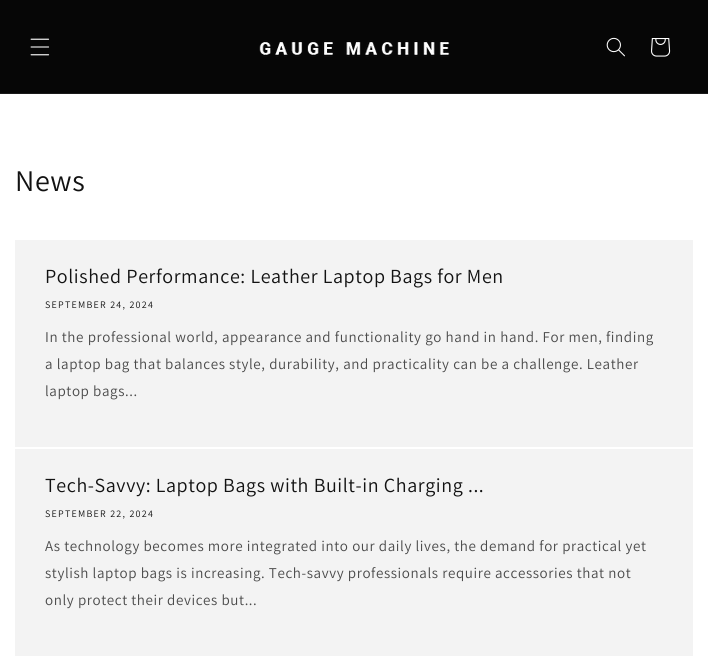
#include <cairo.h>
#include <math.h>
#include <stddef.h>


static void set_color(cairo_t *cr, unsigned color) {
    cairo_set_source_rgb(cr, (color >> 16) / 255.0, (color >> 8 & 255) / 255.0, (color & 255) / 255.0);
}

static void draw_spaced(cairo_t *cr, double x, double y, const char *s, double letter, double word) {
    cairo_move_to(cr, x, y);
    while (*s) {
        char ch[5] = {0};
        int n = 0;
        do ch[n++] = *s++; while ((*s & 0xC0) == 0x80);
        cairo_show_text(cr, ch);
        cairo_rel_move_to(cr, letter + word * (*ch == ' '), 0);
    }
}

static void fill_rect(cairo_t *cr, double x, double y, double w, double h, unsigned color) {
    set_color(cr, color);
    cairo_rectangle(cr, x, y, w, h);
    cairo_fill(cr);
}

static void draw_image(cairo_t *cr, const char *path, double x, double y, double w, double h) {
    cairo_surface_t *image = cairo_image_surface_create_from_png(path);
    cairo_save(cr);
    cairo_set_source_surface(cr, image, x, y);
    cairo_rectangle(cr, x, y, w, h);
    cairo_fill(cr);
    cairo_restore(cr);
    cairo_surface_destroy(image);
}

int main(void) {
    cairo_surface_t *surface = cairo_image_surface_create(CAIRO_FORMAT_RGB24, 708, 666);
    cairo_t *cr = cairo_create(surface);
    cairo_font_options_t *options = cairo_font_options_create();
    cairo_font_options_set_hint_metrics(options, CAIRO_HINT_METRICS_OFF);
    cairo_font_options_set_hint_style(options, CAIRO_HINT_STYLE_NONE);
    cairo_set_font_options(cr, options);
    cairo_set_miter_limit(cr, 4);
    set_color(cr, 0xFFFFFF);
    cairo_paint(cr);
    fill_rect(cr, 0, 0, 708, 93, 0x060606);
    fill_rect(cr, 0, 93, 708, 1, 0x1A1A1A);
    draw_image(cr, "assets/img1.png", 30, 38, 20, 18);
    draw_image(cr, "assets/img2.png", 259, 40, 191, 17);
    draw_image(cr, "assets/img3.png", 606, 37, 19, 20);
    draw_image(cr, "assets/img4.png", 651, 38, 20, 19);
    cairo_select_font_face(cr, "Assistant", CAIRO_FONT_SLANT_NORMAL, CAIRO_FONT_WEIGHT_NORMAL);
    cairo_set_font_size(cr, 30);
    set_color(cr, 0x121212);
    draw_spaced(cr, 15, 191, "News", 0.6, 0);
    fill_rect(cr, 15, 240, 678, 207, 0xF3F3F3);
    cairo_set_font_size(cr, 20);
    set_color(cr, 0x121212);
    draw_spaced(cr, 45, 283, "Polished Performance: Leather Laptop Bags for Men", 0.6, 0);
    cairo_set_font_size(cr, 10);
    draw_spaced(cr, 45, 308, "SEPTEMBER 24, 2024", 1.25, 0);
    cairo_set_font_size(cr, 15);
    set_color(cr, 0x4A4A4A);
    draw_spaced(cr, 45, 342, "In the professional world, appearance and functionality go hand in hand. For men, finding", 0.6, 0);
    draw_spaced(cr, 45, 369, "a laptop bag that balances style, durability, and practicality can be a challenge. Leather", 0.6, 0);
    draw_spaced(cr, 45, 396, "laptop bags...", 0.6, 0);
    fill_rect(cr, 15, 449, 678, 207, 0xF3F3F3);
    cairo_set_font_size(cr, 20);
    set_color(cr, 0x121212);
    draw_spaced(cr, 45, 492, "Tech-Savvy: Laptop Bags with Built-in Charging ...", 0.6, 0);
    cairo_set_font_size(cr, 10);
    draw_spaced(cr, 45, 517, "SEPTEMBER 22, 2024", 1.25, 0);
    cairo_set_font_size(cr, 15);
    set_color(cr, 0x4A4A4A);
    draw_spaced(cr, 45, 551, "As technology becomes more integrated into our daily lives, the demand for practical yet", 0.6, 0);
    draw_spaced(cr, 45, 578, "stylish laptop bags is increasing. Tech-savvy professionals require accessories that not", 0.6, 0);
    draw_spaced(cr, 45, 605, "only protect their devices but...", 0.6, 0);
    cairo_surface_write_to_png(surface, "output.png");
    cairo_font_options_destroy(options);
    cairo_destroy(cr);
    cairo_surface_destroy(surface);
    return 0;
}
